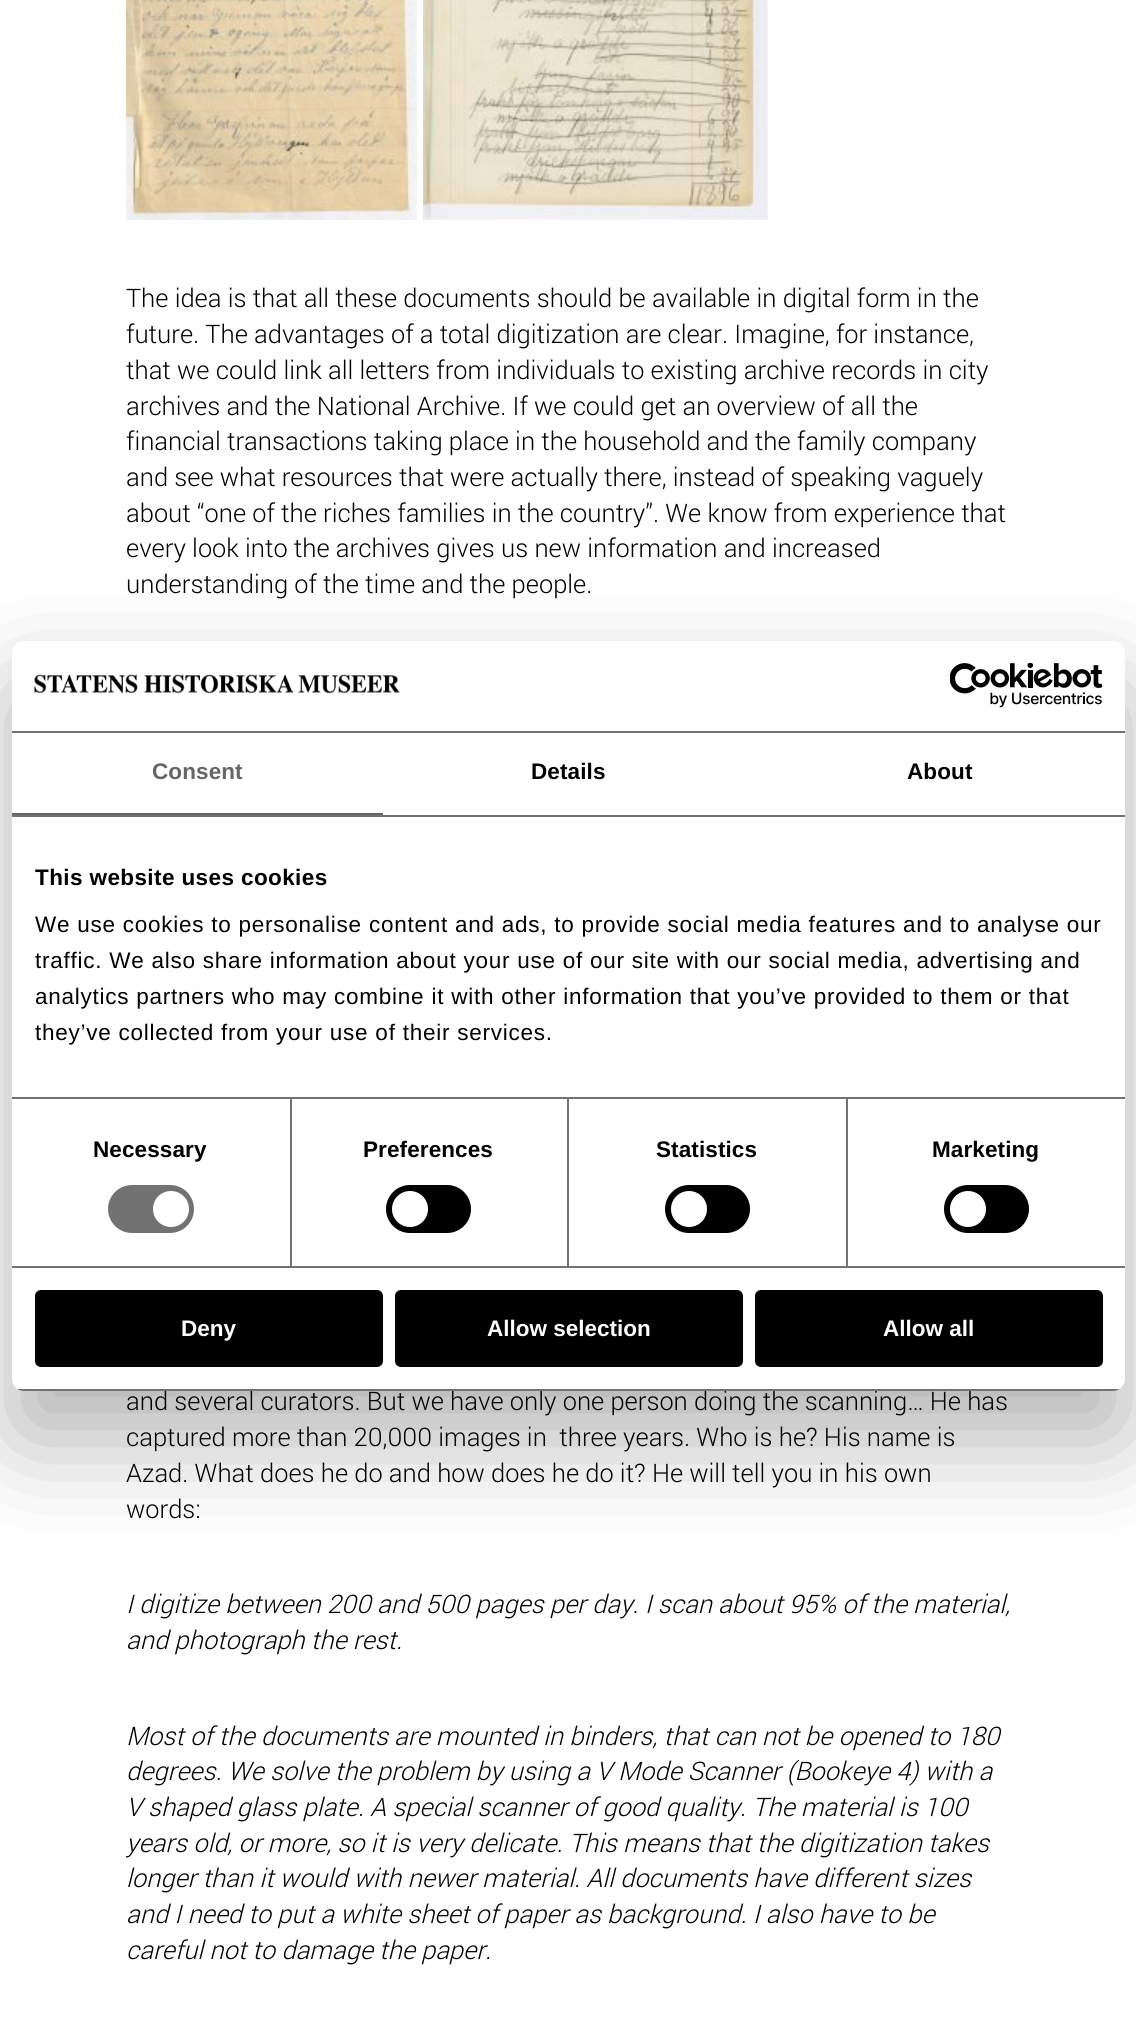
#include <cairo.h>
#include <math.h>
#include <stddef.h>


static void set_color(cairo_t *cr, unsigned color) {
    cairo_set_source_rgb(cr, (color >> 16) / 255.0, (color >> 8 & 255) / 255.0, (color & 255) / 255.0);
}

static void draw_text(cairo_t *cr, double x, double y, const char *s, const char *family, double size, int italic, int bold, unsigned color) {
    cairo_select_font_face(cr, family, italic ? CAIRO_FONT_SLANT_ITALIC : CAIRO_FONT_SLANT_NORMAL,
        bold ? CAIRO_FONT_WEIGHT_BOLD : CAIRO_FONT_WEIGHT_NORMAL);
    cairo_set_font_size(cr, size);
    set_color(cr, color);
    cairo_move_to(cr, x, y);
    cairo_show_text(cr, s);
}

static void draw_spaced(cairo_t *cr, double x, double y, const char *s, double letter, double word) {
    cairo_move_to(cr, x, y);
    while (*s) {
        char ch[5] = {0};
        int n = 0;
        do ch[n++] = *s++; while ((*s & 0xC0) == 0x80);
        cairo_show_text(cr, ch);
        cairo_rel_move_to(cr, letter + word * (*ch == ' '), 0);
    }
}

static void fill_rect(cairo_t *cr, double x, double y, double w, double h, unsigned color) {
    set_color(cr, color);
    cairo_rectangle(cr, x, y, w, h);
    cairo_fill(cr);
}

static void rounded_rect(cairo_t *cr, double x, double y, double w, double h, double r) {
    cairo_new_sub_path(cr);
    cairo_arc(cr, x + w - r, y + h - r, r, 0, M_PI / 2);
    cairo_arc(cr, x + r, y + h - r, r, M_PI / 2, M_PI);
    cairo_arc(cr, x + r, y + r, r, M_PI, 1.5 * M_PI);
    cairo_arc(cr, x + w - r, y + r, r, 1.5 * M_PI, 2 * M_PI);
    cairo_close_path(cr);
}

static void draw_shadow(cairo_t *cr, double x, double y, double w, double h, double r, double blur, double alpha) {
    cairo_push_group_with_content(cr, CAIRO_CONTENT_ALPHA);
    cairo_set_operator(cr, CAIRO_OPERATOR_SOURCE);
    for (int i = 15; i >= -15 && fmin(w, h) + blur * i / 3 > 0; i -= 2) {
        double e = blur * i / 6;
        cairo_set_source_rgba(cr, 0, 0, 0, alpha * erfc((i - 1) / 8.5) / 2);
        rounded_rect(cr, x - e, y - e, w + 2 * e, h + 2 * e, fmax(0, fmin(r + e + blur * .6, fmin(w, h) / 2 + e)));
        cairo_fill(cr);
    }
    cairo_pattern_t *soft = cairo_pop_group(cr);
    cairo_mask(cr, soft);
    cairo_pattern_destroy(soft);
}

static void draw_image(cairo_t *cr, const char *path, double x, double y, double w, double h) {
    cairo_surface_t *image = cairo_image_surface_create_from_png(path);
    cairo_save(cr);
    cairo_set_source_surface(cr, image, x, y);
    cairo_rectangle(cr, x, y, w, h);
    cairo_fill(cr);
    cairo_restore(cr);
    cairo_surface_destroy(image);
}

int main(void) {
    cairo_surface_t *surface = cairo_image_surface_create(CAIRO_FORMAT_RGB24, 1136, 2029);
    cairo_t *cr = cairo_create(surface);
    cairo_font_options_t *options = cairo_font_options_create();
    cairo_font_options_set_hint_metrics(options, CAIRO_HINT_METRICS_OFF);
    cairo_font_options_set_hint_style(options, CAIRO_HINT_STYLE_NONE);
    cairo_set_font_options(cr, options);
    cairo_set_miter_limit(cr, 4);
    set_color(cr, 0xFFFFFF);
    cairo_paint(cr);
    draw_image(cr, "assets/img1.png", 126, 0, 291, 220);
    draw_image(cr, "assets/img2.png", 423, 0, 345, 220);
    draw_text(cr, 126, 307, "The idea is that all these documents should be available in digital form in the", "Roboto Light", 25.5, 0, 0, 0x000000);
    draw_text(cr, 126, 343, "future. The advantages of a total digitization are clear. Imagine, for instance,", "Roboto Light", 25.5, 0, 0, 0x000000);
    draw_text(cr, 126, 379, "that we could link all letters from individuals to existing archive records in city", "Roboto Light", 25.5, 0, 0, 0x000000);
    draw_text(cr, 126, 415, "archives and the National Archive. If we could get an overview of all the", "Roboto Light", 25.5, 0, 0, 0x000000);
    draw_text(cr, 126, 450, "financial transactions taking place in the household and the family company", "Roboto Light", 25.5, 0, 0, 0x000000);
    draw_text(cr, 126, 486, "and see what resources that were actually there, instead of speaking vaguely", "Roboto Light", 25.5, 0, 0, 0x000000);
    draw_text(cr, 126, 522, "about “one of the riches families in the country”. We know from experience that", "Roboto Light", 25.5, 0, 0, 0x000000);
    draw_text(cr, 126, 557, "every look into the archives gives us new information and increased", "Roboto Light", 25.5, 0, 0, 0x000000);
    draw_text(cr, 126, 593, "understanding of the time and the people.", "Roboto Light", 25.5, 0, 0, 0x000000);
    draw_text(cr, 126, 1410, "and several curators. But we have only one person doing the scanning… He has", "Roboto Light", 25.5, 0, 0, 0x000000);
    draw_text(cr, 126, 1446, "captured more than 20,000 images in  three years. Who is he? His name is", "Roboto Light", 25.5, 0, 0, 0x000000);
    draw_text(cr, 126, 1482, "Azad. What does he do and how does he do it? He will tell you in his own", "Roboto Light", 25.5, 0, 0, 0x000000);
    draw_text(cr, 126, 1518, "words:", "Roboto Light", 25.5, 0, 0, 0x000000);
    draw_text(cr, 126, 1613, "I digitize between 200 and 500 pages per day. I scan about 95% of the material,", "Roboto Light", 25.5, 1, 0, 0x000000);
    draw_text(cr, 126, 1649, "and photograph the rest.", "Roboto Light", 25.5, 1, 0, 0x000000);
    draw_text(cr, 126, 1745, "Most of the documents are mounted in binders, that can not be opened to 180", "Roboto Light", 25.5, 1, 0, 0x000000);
    draw_text(cr, 126, 1780, "degrees. We solve the problem by using a V Mode Scanner (Bookeye 4) with a", "Roboto Light", 25.5, 1, 0, 0x000000);
    draw_text(cr, 126, 1816, "V shaped glass plate. A special scanner of good quality. The material is 100", "Roboto Light", 25.5, 1, 0, 0x000000);
    draw_text(cr, 126, 1852, "years old, or more, so it is very delicate. This means that the digitization takes", "Roboto Light", 25.5, 1, 0, 0x000000);
    draw_text(cr, 126, 1887, "longer than it would with newer material. All documents have different sizes", "Roboto Light", 25.5, 1, 0, 0x000000);
    draw_text(cr, 126, 1923, "and I need to put a white sheet of paper as background. I also have to be", "Roboto Light", 25.5, 1, 0, 0x000000);
    draw_text(cr, 126, 1959, "careful not to damage the paper.", "Roboto Light", 25.5, 1, 0, 0x000000);
    set_color(cr, 0x000000);
    draw_shadow(cr, 12, 689, 1113, 750, 12, 51, 0.3);
    set_color(cr, 0xFFFFFF);
    rounded_rect(cr, 12, 641, 1113, 750, 12);
    cairo_fill(cr);
    fill_rect(cr, 12, 731, 1113, 2, 0x737272);
    draw_image(cr, "assets/img3.png", 34, 674, 366, 20);
    draw_image(cr, "assets/img4.png", 950, 663, 153, 45);
    fill_rect(cr, 12, 815, 1113, 2, 0x737272);
    fill_rect(cr, 12, 813, 371, 2, 0x666666);
    cairo_select_font_face(cr, "Liberation Sans", CAIRO_FONT_SLANT_NORMAL, CAIRO_FONT_WEIGHT_BOLD);
    cairo_set_font_size(cr, 22.5);
    draw_spaced(cr, 152, 779, "Consent", 0.1, 0);
    set_color(cr, 0x000000);
    draw_spaced(cr, 531, 779, "Details", 0.1, 0);
    draw_spaced(cr, 907, 779, "About", 0.1, 0);
    fill_rect(cr, 290, 1098, 2, 168, 0x737272);
    fill_rect(cr, 567, 1098, 2, 168, 0x737272);
    fill_rect(cr, 846, 1098, 2, 168, 0x737272);
    fill_rect(cr, 12, 1097, 1113, 2, 0x737272);
    set_color(cr, 0x000000);
    draw_spaced(cr, 35, 885, "This website uses cookies", 0.4, 0);
    cairo_select_font_face(cr, "Liberation Sans", CAIRO_FONT_SLANT_NORMAL, CAIRO_FONT_WEIGHT_NORMAL);
    draw_spaced(cr, 35, 932, "We use cookies to personalise content and ads, to provide social media features and to analyse our", 0.75, 0);
    draw_spaced(cr, 35, 968, "traffic. We also share information about your use of our site with our social media, advertising and", 0.75, 0);
    draw_spaced(cr, 35, 1004, "analytics partners who may combine it with other information that you’ve provided to them or that", 0.75, 0);
    draw_spaced(cr, 35, 1040, "they’ve collected from your use of their services.", 0.75, 0);
    fill_rect(cr, 12, 1266, 1113, 2, 0x737272);
    cairo_select_font_face(cr, "Liberation Sans", CAIRO_FONT_SLANT_NORMAL, CAIRO_FONT_WEIGHT_BOLD);
    set_color(cr, 0x000000);
    draw_spaced(cr, 93, 1157, "Necessary", 0.1, 0);
    set_color(cr, 0x737272);
    rounded_rect(cr, 108, 1185, 86, 48, 24);
    cairo_fill(cr);
    set_color(cr, 0xFFFFFF);
    cairo_arc(cr, 171, 1209, 18, 0, 2 * M_PI);
    cairo_fill(cr);
    set_color(cr, 0x000000);
    draw_spaced(cr, 363, 1157, "Preferences", 0.1, 0);
    rounded_rect(cr, 386, 1185, 85, 48, 24);
    cairo_fill(cr);
    set_color(cr, 0xFFFFFF);
    cairo_arc(cr, 410, 1209, 18, 0, 2 * M_PI);
    cairo_fill(cr);
    set_color(cr, 0x000000);
    draw_spaced(cr, 656, 1157, "Statistics", 0.1, 0);
    rounded_rect(cr, 665, 1185, 85, 48, 24);
    cairo_fill(cr);
    set_color(cr, 0xFFFFFF);
    cairo_arc(cr, 689, 1209, 18, 0, 2 * M_PI);
    cairo_fill(cr);
    set_color(cr, 0x000000);
    draw_spaced(cr, 932, 1157, "Marketing", 0.1, 0);
    rounded_rect(cr, 944, 1185, 85, 48, 24);
    cairo_fill(cr);
    set_color(cr, 0xFFFFFF);
    cairo_arc(cr, 968, 1209, 18, 0, 2 * M_PI);
    cairo_fill(cr);
    cairo_save(cr);
    rounded_rect(cr, 12, 641, 1113, 750, 12);
    cairo_clip(cr);
    fill_rect(cr, 12, 1389, 1113, 2, 0x737272);
    cairo_restore(cr);
    set_color(cr, 0x000000);
    rounded_rect(cr, 36.5, 1291.5, 345, 74, 4.5);
    cairo_fill_preserve(cr);
    cairo_set_line_width(cr, 3);
    cairo_stroke(cr);
    draw_text(cr, 181, 1336, "Deny", "Liberation Sans", 22.5, 0, 1, 0xFFFFFF);
    set_color(cr, 0x000000);
    rounded_rect(cr, 396.5, 1291.5, 345, 74, 4.5);
    cairo_fill_preserve(cr);
    cairo_stroke(cr);
    draw_text(cr, 487, 1336, "Allow selection", "Liberation Sans", 22.5, 0, 1, 0xFFFFFF);
    set_color(cr, 0x000000);
    rounded_rect(cr, 756.5, 1291.5, 345, 74, 4.5);
    cairo_fill_preserve(cr);
    cairo_stroke(cr);
    draw_text(cr, 883, 1336, "Allow all", "Liberation Sans", 22.5, 0, 1, 0xFFFFFF);
    cairo_surface_write_to_png(surface, "output.png");
    cairo_font_options_destroy(options);
    cairo_destroy(cr);
    cairo_surface_destroy(surface);
    return 0;
}
